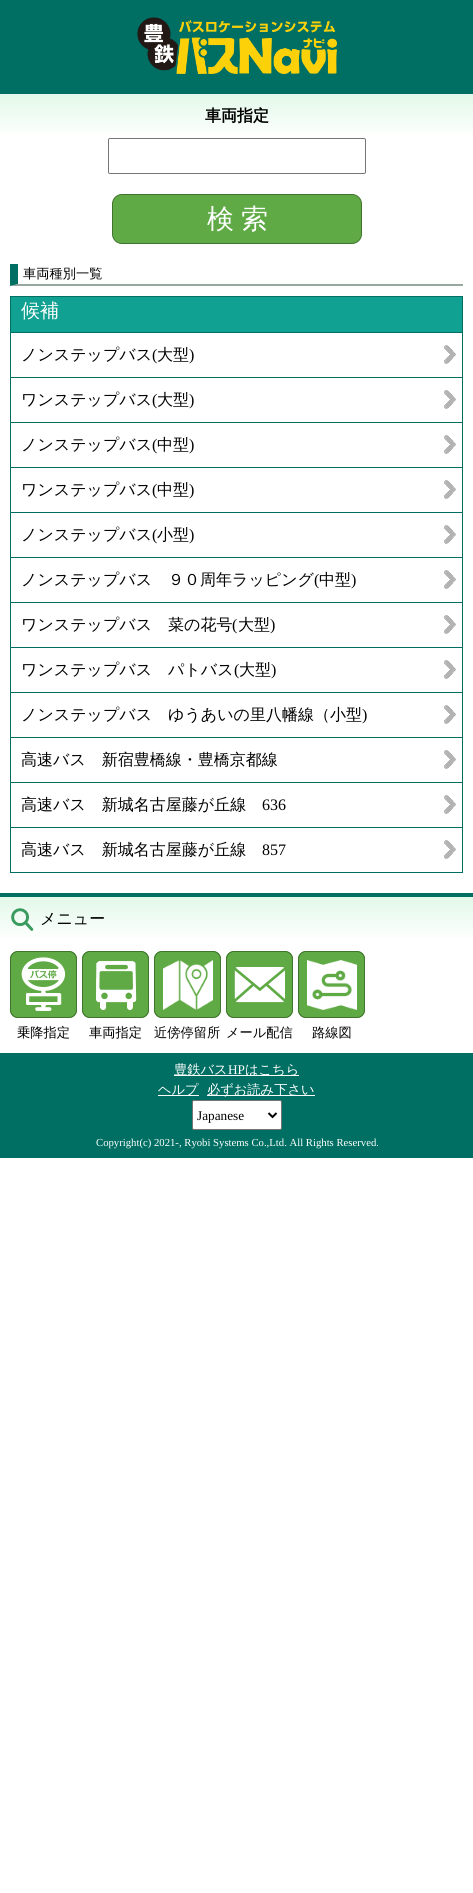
#include <cairo.h>
#include <math.h>
#include <stddef.h>


static void set_color(cairo_t *cr, unsigned color) {
    cairo_set_source_rgb(cr, (color >> 16) / 255.0, (color >> 8 & 255) / 255.0, (color & 255) / 255.0);
}

static void draw_text(cairo_t *cr, double x, double y, const char *s, const char *family, double size, int italic, int bold, unsigned color) {
    cairo_select_font_face(cr, family, italic ? CAIRO_FONT_SLANT_ITALIC : CAIRO_FONT_SLANT_NORMAL,
        bold ? CAIRO_FONT_WEIGHT_BOLD : CAIRO_FONT_WEIGHT_NORMAL);
    cairo_set_font_size(cr, size);
    set_color(cr, color);
    cairo_move_to(cr, x, y);
    cairo_show_text(cr, s);
}

static void draw_spaced(cairo_t *cr, double x, double y, const char *s, double letter, double word) {
    cairo_move_to(cr, x, y);
    while (*s) {
        char ch[5] = {0};
        int n = 0;
        do ch[n++] = *s++; while ((*s & 0xC0) == 0x80);
        cairo_show_text(cr, ch);
        cairo_rel_move_to(cr, letter + word * (*ch == ' '), 0);
    }
}

static void fill_rect(cairo_t *cr, double x, double y, double w, double h, unsigned color) {
    set_color(cr, color);
    cairo_rectangle(cr, x, y, w, h);
    cairo_fill(cr);
}

static void rounded_rect(cairo_t *cr, double x, double y, double w, double h, double r) {
    cairo_new_sub_path(cr);
    cairo_arc(cr, x + w - r, y + h - r, r, 0, M_PI / 2);
    cairo_arc(cr, x + r, y + h - r, r, M_PI / 2, M_PI);
    cairo_arc(cr, x + r, y + r, r, M_PI, 1.5 * M_PI);
    cairo_arc(cr, x + w - r, y + r, r, 1.5 * M_PI, 2 * M_PI);
    cairo_close_path(cr);
}

static void draw_image(cairo_t *cr, const char *path, double x, double y, double w, double h) {
    cairo_surface_t *image = cairo_image_surface_create_from_png(path);
    cairo_save(cr);
    cairo_set_source_surface(cr, image, x, y);
    cairo_rectangle(cr, x, y, w, h);
    cairo_fill(cr);
    cairo_restore(cr);
    cairo_surface_destroy(image);
}

int main(void) {
    cairo_surface_t *surface = cairo_image_surface_create(CAIRO_FORMAT_RGB24, 473, 1893);
    cairo_t *cr = cairo_create(surface);
    cairo_font_options_t *options = cairo_font_options_create();
    cairo_font_options_set_hint_metrics(options, CAIRO_HINT_METRICS_OFF);
    cairo_font_options_set_hint_style(options, CAIRO_HINT_STYLE_NONE);
    cairo_set_font_options(cr, options);
    cairo_set_miter_limit(cr, 4);
    cairo_pattern_t *gradient;
    set_color(cr, 0xFFFFFF);
    cairo_paint(cr);
    fill_rect(cr, 0, 0, 473, 94, 0x006F63);
    draw_image(cr, "assets/img1.png", 137, 17, 200, 57);
    gradient = cairo_pattern_create_linear(0, 94, 0, 138);
    cairo_pattern_add_color_stop_rgba(gradient, 0, 0.886, 0.973, 0.91, 1);
    cairo_pattern_add_color_stop_rgba(gradient, 1, 1, 1, 1, 1);
    cairo_set_source(cr, gradient);
    cairo_pattern_destroy(gradient);
    cairo_rectangle(cr, 0, 94, 473, 40);
    cairo_fill(cr);
    draw_text(cr, 205, 121, "車両指定", "WenQuanYi Zen Hei", 16, 0, 1, 0x000000);
    rounded_rect(cr, 108.5, 138.5, 257, 35, 1.5);
    set_color(cr, 0x767676);
    cairo_set_line_width(cr, 1);
    cairo_stroke(cr);
    set_color(cr, 0x5FAA45);
    rounded_rect(cr, 112.5, 194.5, 249, 49, 9.5);
    cairo_fill_preserve(cr);
    set_color(cr, 0x40732E);
    cairo_stroke(cr);
    cairo_select_font_face(cr, "WenQuanYi Zen Hei Medium", CAIRO_FONT_SLANT_NORMAL, CAIRO_FONT_WEIGHT_NORMAL);
    cairo_set_font_size(cr, 27);
    set_color(cr, 0xFFFFFF);
    draw_spaced(cr, 207, 228, "検 索", 0, -1);
    set_color(cr, 0x97A89F);
    cairo_new_path(cr);
    cairo_move_to(cr, 463, 286);
    cairo_line_to(cr, 10, 286);
    cairo_line_to(cr, 18, 284);
    cairo_line_to(cr, 463, 284);
    cairo_close_path(cr);
    cairo_fill(cr);
    set_color(cr, 0x006F63);
    cairo_new_path(cr);
    cairo_move_to(cr, 10, 286);
    cairo_line_to(cr, 10, 264);
    cairo_line_to(cr, 18, 264);
    cairo_line_to(cr, 18, 284);
    cairo_close_path(cr);
    cairo_fill(cr);
    draw_text(cr, 23, 278, "車両種別一覧", "WenQuanYi Zen Hei Medium", 13.25, 0, 0, 0x000000);
    set_color(cr, 0x11A192);
    cairo_rectangle(cr, 10.5, 296.5, 452, 36);
    cairo_fill_preserve(cr);
    set_color(cr, 0x006F63);
    cairo_stroke(cr);
    draw_text(cr, 21, 317, "候補", "WenQuanYi Zen Hei Medium", 19, 0, 0, 0xFFFFFF);
    draw_image(cr, "assets/img2.png", 444, 345, 12, 19);
    fill_rect(cr, 462, 333, 1, 540, 0x006F63);
    fill_rect(cr, 10, 377, 453, 1, 0x006F63);
    fill_rect(cr, 10, 333, 1, 45, 0x006F63);
    draw_text(cr, 21, 360, "ノンステップバス", "WenQuanYi Zen Hei Medium", 16, 0, 0, 0x000000);
    draw_text(cr, 152, 360, "(", "Liberation Serif", 16, 0, 0, 0x000000);
    draw_text(cr, 157, 360, "大型", "WenQuanYi Zen Hei Medium", 16, 0, 0, 0x000000);
    draw_text(cr, 189, 360, ")", "Liberation Serif", 16, 0, 0, 0x000000);
    draw_image(cr, "assets/img2.png", 444, 390, 12, 19);
    fill_rect(cr, 10, 422, 453, 1, 0x006F63);
    fill_rect(cr, 10, 378, 1, 45, 0x006F63);
    draw_text(cr, 21, 405, "ワンステップバス", "WenQuanYi Zen Hei Medium", 16, 0, 0, 0x000000);
    draw_text(cr, 152, 405, "(", "Liberation Serif", 16, 0, 0, 0x000000);
    draw_text(cr, 157, 405, "大型", "WenQuanYi Zen Hei Medium", 16, 0, 0, 0x000000);
    draw_text(cr, 189, 405, ")", "Liberation Serif", 16, 0, 0, 0x000000);
    draw_image(cr, "assets/img2.png", 444, 435, 12, 19);
    fill_rect(cr, 10, 467, 453, 1, 0x006F63);
    fill_rect(cr, 10, 423, 1, 45, 0x006F63);
    draw_text(cr, 21, 450, "ノンステップバス", "WenQuanYi Zen Hei Medium", 16, 0, 0, 0x000000);
    draw_text(cr, 152, 450, "(", "Liberation Serif", 16, 0, 0, 0x000000);
    draw_text(cr, 157, 450, "中型", "WenQuanYi Zen Hei Medium", 16, 0, 0, 0x000000);
    draw_text(cr, 189, 450, ")", "Liberation Serif", 16, 0, 0, 0x000000);
    draw_image(cr, "assets/img2.png", 444, 480, 12, 19);
    fill_rect(cr, 10, 512, 453, 1, 0x006F63);
    fill_rect(cr, 10, 468, 1, 45, 0x006F63);
    draw_text(cr, 21, 495, "ワンステップバス", "WenQuanYi Zen Hei Medium", 16, 0, 0, 0x000000);
    draw_text(cr, 152, 495, "(", "Liberation Serif", 16, 0, 0, 0x000000);
    draw_text(cr, 157, 495, "中型", "WenQuanYi Zen Hei Medium", 16, 0, 0, 0x000000);
    draw_text(cr, 189, 495, ")", "Liberation Serif", 16, 0, 0, 0x000000);
    draw_image(cr, "assets/img2.png", 444, 525, 12, 19);
    fill_rect(cr, 10, 557, 453, 1, 0x006F63);
    fill_rect(cr, 10, 513, 1, 45, 0x006F63);
    draw_text(cr, 21, 540, "ノンステップバス", "WenQuanYi Zen Hei Medium", 16, 0, 0, 0x000000);
    draw_text(cr, 152, 540, "(", "Liberation Serif", 16, 0, 0, 0x000000);
    draw_text(cr, 157, 540, "小型", "WenQuanYi Zen Hei Medium", 16, 0, 0, 0x000000);
    draw_text(cr, 189, 540, ")", "Liberation Serif", 16, 0, 0, 0x000000);
    draw_image(cr, "assets/img2.png", 444, 570, 12, 19);
    fill_rect(cr, 10, 602, 453, 1, 0x006F63);
    fill_rect(cr, 10, 558, 1, 45, 0x006F63);
    draw_text(cr, 21, 585, "ノンステップバス　９０周年ラッピング", "WenQuanYi Zen Hei Medium", 16, 0, 0, 0x000000);
    draw_text(cr, 314, 585, "(", "Liberation Serif", 16, 0, 0, 0x000000);
    draw_text(cr, 319, 585, "中型", "WenQuanYi Zen Hei Medium", 16, 0, 0, 0x000000);
    draw_text(cr, 351, 585, ")", "Liberation Serif", 16, 0, 0, 0x000000);
    draw_image(cr, "assets/img2.png", 444, 615, 12, 19);
    fill_rect(cr, 10, 647, 453, 1, 0x006F63);
    fill_rect(cr, 10, 603, 1, 45, 0x006F63);
    draw_text(cr, 21, 630, "ワンステップバス　菜の花号", "WenQuanYi Zen Hei Medium", 16, 0, 0, 0x000000);
    draw_text(cr, 232, 630, "(", "Liberation Serif", 16, 0, 0, 0x000000);
    draw_text(cr, 238, 630, "大型", "WenQuanYi Zen Hei Medium", 16, 0, 0, 0x000000);
    draw_text(cr, 270, 630, ")", "Liberation Serif", 16, 0, 0, 0x000000);
    draw_image(cr, "assets/img2.png", 444, 660, 12, 19);
    fill_rect(cr, 10, 692, 453, 1, 0x006F63);
    fill_rect(cr, 10, 648, 1, 45, 0x006F63);
    draw_text(cr, 21, 675, "ワンステップバス　パトバス", "WenQuanYi Zen Hei Medium", 16, 0, 0, 0x000000);
    draw_text(cr, 234, 675, "(", "Liberation Serif", 16, 0, 0, 0x000000);
    draw_text(cr, 239, 675, "大型", "WenQuanYi Zen Hei Medium", 16, 0, 0, 0x000000);
    draw_text(cr, 271, 675, ")", "Liberation Serif", 16, 0, 0, 0x000000);
    draw_image(cr, "assets/img2.png", 444, 705, 12, 19);
    fill_rect(cr, 10, 737, 453, 1, 0x006F63);
    fill_rect(cr, 10, 693, 1, 45, 0x006F63);
    draw_text(cr, 21, 720, "ノンステップバス　ゆうあいの里八幡線（小型", "WenQuanYi Zen Hei Medium", 16, 0, 0, 0x000000);
    draw_text(cr, 362, 720, ")", "Liberation Serif", 16, 0, 0, 0x000000);
    draw_image(cr, "assets/img2.png", 444, 750, 12, 19);
    fill_rect(cr, 10, 782, 453, 1, 0x006F63);
    fill_rect(cr, 10, 738, 1, 45, 0x006F63);
    draw_text(cr, 21, 765, "高速バス　新宿豊橋線・豊橋京都線", "WenQuanYi Zen Hei Medium", 16, 0, 0, 0x000000);
    draw_image(cr, "assets/img2.png", 444, 795, 12, 19);
    fill_rect(cr, 10, 827, 453, 1, 0x006F63);
    fill_rect(cr, 10, 783, 1, 45, 0x006F63);
    draw_text(cr, 21, 810, "高速バス　新城名古屋藤が丘線", "WenQuanYi Zen Hei Medium", 16, 0, 0, 0x000000);
    draw_text(cr, 262, 810, "636", "Liberation Serif", 16, 0, 0, 0x000000);
    draw_image(cr, "assets/img2.png", 444, 840, 12, 19);
    fill_rect(cr, 10, 872, 453, 1, 0x006F63);
    fill_rect(cr, 10, 828, 1, 45, 0x006F63);
    draw_text(cr, 21, 855, "高速バス　新城名古屋藤が丘線", "WenQuanYi Zen Hei Medium", 16, 0, 0, 0x000000);
    draw_text(cr, 262, 855, "857", "Liberation Serif", 16, 0, 0, 0x000000);
    gradient = cairo_pattern_create_linear(0, 897, 0, 941);
    cairo_pattern_add_color_stop_rgba(gradient, 0, 0.886, 0.973, 0.91, 1);
    cairo_pattern_add_color_stop_rgba(gradient, 1, 1, 1, 1, 1);
    cairo_set_source(cr, gradient);
    cairo_pattern_destroy(gradient);
    cairo_rectangle(cr, 0, 897, 473, 40);
    cairo_fill(cr);
    fill_rect(cr, 0, 893, 473, 4, 0x006F63);
    draw_image(cr, "assets/img3.png", 11, 908, 23, 23);
    draw_text(cr, 40, 924, "メニュー", "WenQuanYi Zen Hei Medium", 16, 0, 0, 0x000000);
    set_color(cr, 0x5FAA45);
    rounded_rect(cr, 10, 951, 67, 67, 8);
    cairo_fill(cr);
    draw_image(cr, "assets/img4.png", 21, 957, 45, 54);
    rounded_rect(cr, 10.5, 951.5, 66, 66, 7.5);
    set_color(cr, 0x40732E);
    cairo_stroke(cr);
    draw_text(cr, 17, 1037, "乗降指定", "WenQuanYi Zen Hei Medium", 13.25, 0, 0, 0x000000);
    set_color(cr, 0x5FAA45);
    rounded_rect(cr, 82, 951, 67, 67, 8);
    cairo_fill(cr);
    draw_image(cr, "assets/img5.png", 96, 961, 41, 49);
    rounded_rect(cr, 82.5, 951.5, 66, 66, 7.5);
    set_color(cr, 0x40732E);
    cairo_stroke(cr);
    draw_text(cr, 89, 1037, "車両指定", "WenQuanYi Zen Hei Medium", 13.25, 0, 0, 0x000000);
    set_color(cr, 0x5FAA45);
    rounded_rect(cr, 154, 951, 67, 67, 8);
    cairo_fill(cr);
    draw_image(cr, "assets/img6.png", 163, 960, 50, 50);
    rounded_rect(cr, 154.5, 951.5, 66, 66, 7.5);
    set_color(cr, 0x40732E);
    cairo_stroke(cr);
    draw_text(cr, 154, 1037, "近傍停留所", "WenQuanYi Zen Hei Medium", 13.25, 0, 0, 0x000000);
    set_color(cr, 0x5FAA45);
    rounded_rect(cr, 226, 951, 67, 67, 8);
    cairo_fill(cr);
    draw_image(cr, "assets/img7.png", 234, 967, 51, 36);
    rounded_rect(cr, 226.5, 951.5, 66, 66, 7.5);
    set_color(cr, 0x40732E);
    cairo_stroke(cr);
    draw_text(cr, 226, 1037, "メール配信", "WenQuanYi Zen Hei Medium", 13.25, 0, 0, 0x000000);
    set_color(cr, 0x5FAA45);
    rounded_rect(cr, 298, 951, 67, 67, 8);
    cairo_fill(cr);
    draw_image(cr, "assets/img8.png", 307, 960, 50, 50);
    rounded_rect(cr, 298.5, 951.5, 66, 66, 7.5);
    set_color(cr, 0x40732E);
    cairo_stroke(cr);
    draw_text(cr, 312, 1037, "路線図", "WenQuanYi Zen Hei Medium", 13.25, 0, 0, 0x000000);
    fill_rect(cr, 0, 1053, 473, 105, 0x006F63);
    fill_rect(cr, 174, 1075, 125, 1, 0xFFFFFF);
    draw_text(cr, 174, 1074, "豊鉄バス", "WenQuanYi Zen Hei Medium", 13.25, 0, 0, 0xFFFFFF);
    draw_text(cr, 228, 1074, "HP", "Liberation Serif", 13.25, 0, 0, 0xFFFFFF);
    draw_text(cr, 245, 1074, "はこちら", "WenQuanYi Zen Hei Medium", 13.25, 0, 0, 0xFFFFFF);
    fill_rect(cr, 158, 1095, 41, 1, 0xFFFFFF);
    draw_text(cr, 158, 1094, "ヘルプ", "WenQuanYi Zen Hei Medium", 13.25, 0, 0, 0xFFFFFF);
    fill_rect(cr, 207, 1095, 108, 1, 0xFFFFFF);
    draw_text(cr, 207, 1094, "必ずお読み下さい", "WenQuanYi Zen Hei Medium", 13.25, 0, 0, 0xFFFFFF);
    rounded_rect(cr, 192.5, 1100.5, 89, 29, 1.5);
    cairo_fill_preserve(cr);
    set_color(cr, 0x767676);
    cairo_stroke(cr);
    cairo_new_path(cr);
    cairo_move_to(cr, 268.5, 1113);
    cairo_line_to(cr, 272.5, 1117);
    cairo_line_to(cr, 276.5, 1113);
    set_color(cr, 0x000000);
    cairo_set_line_width(cr, 2);
    cairo_stroke(cr);
    draw_text(cr, 197, 1120, "Japanese", "Liberation Serif", 13.25, 0, 0, 0x000000);
    draw_text(cr, 96, 1146, "Copyright(c) 2021-, Ryobi Systems Co.,Ltd. All Rights Reserved.", "Liberation Serif", 10.7, 0, 0, 0xFFFFFF);
    cairo_surface_write_to_png(surface, "output.png");
    cairo_font_options_destroy(options);
    cairo_destroy(cr);
    cairo_surface_destroy(surface);
    return 0;
}
